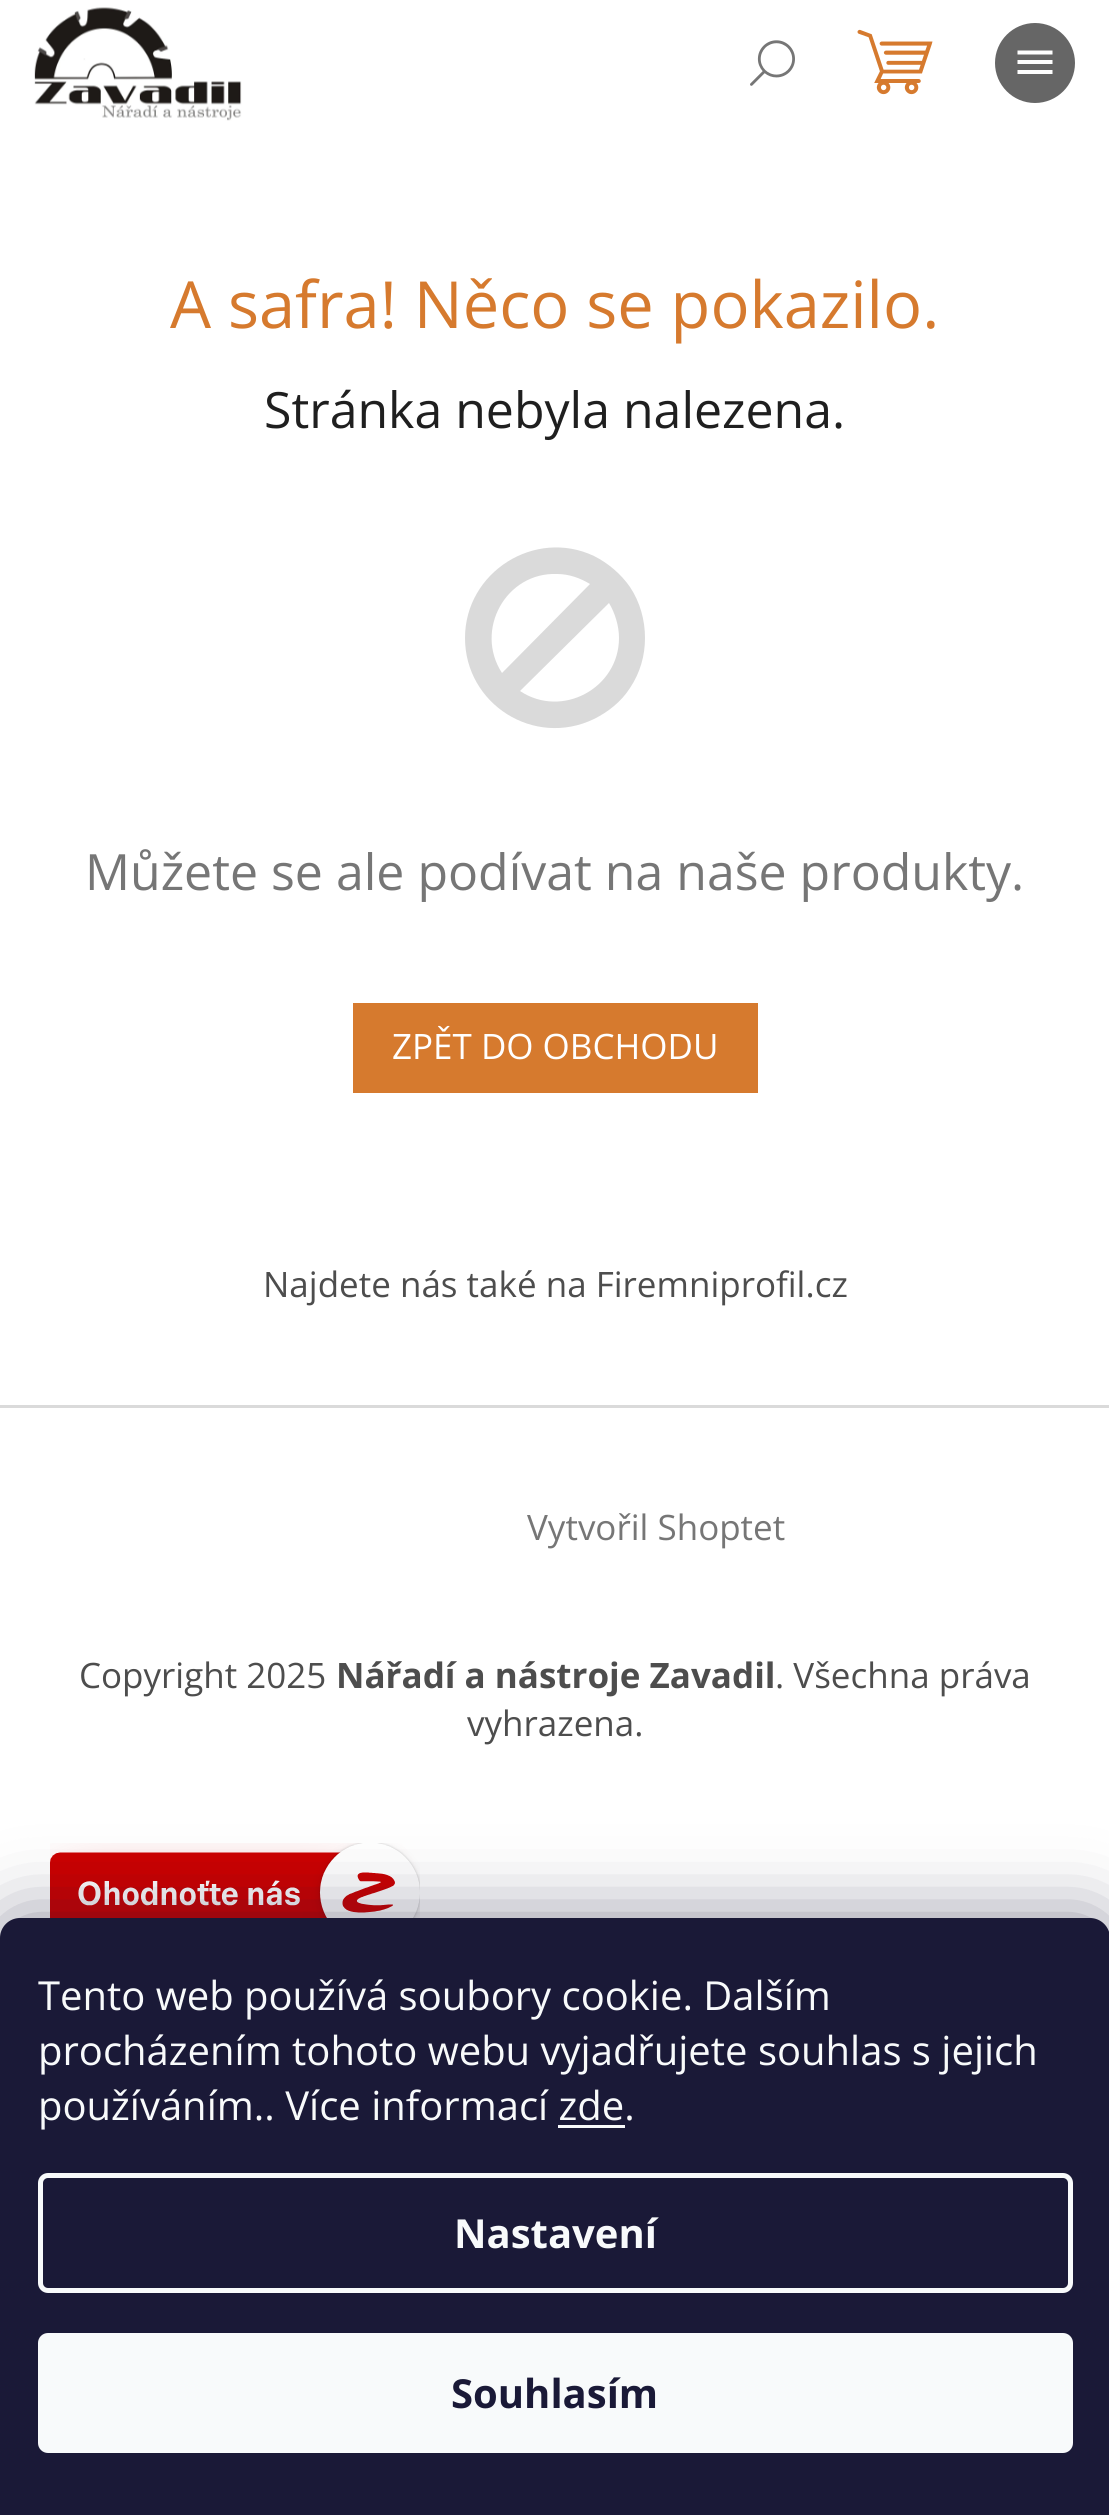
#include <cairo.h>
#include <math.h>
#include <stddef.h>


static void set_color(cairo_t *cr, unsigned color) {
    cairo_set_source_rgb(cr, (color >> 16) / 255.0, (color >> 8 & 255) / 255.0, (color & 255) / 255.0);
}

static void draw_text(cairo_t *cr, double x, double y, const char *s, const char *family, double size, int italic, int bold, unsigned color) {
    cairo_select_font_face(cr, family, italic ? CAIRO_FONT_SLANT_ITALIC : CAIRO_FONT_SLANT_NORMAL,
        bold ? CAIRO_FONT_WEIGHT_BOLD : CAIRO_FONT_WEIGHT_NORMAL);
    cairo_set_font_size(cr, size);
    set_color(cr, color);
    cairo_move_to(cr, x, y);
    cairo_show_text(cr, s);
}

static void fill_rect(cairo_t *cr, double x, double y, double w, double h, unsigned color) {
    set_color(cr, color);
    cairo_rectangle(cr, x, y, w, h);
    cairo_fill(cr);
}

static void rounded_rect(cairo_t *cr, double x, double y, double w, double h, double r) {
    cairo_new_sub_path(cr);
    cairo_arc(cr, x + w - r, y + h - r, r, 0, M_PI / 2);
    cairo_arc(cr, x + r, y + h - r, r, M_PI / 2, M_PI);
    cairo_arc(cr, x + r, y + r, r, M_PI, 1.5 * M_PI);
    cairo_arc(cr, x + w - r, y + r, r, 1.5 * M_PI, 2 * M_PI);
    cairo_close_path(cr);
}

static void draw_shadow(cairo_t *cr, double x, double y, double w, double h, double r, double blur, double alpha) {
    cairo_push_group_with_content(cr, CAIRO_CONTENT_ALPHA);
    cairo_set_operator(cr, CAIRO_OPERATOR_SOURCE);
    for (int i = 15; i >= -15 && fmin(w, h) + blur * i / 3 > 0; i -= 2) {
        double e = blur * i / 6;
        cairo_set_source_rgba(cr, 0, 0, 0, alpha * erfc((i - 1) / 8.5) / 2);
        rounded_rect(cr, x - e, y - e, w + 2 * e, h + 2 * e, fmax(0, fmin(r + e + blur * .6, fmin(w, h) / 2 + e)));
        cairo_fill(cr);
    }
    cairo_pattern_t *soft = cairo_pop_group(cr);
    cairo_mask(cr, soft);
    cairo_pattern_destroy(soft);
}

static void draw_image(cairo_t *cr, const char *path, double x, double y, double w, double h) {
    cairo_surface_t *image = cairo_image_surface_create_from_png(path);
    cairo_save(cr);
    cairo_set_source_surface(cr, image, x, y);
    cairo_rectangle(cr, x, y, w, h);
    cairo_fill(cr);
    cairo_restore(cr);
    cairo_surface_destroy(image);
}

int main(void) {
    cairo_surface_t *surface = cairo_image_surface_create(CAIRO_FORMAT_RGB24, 1109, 2515);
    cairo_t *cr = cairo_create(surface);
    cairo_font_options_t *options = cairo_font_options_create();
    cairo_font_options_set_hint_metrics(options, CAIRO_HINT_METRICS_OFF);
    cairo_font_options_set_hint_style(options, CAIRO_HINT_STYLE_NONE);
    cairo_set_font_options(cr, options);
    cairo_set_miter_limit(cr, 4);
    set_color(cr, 0xFFFFFF);
    cairo_paint(cr);
    draw_image(cr, "assets/img1.png", 34, 7, 208, 114);
    draw_image(cr, "assets/img2.png", 857, 29, 76, 66);
    draw_image(cr, "assets/img3.png", 750, 40, 45, 46);
    set_color(cr, 0x666666);
    cairo_arc(cr, 1035, 63, 40, 0, 2 * M_PI);
    cairo_fill(cr);
    set_color(cr, 0xFFFFFF);
    cairo_new_path(cr);
    cairo_move_to(cr, 1017.5, 74);
    cairo_line_to(cr, 1052.5, 74);
    cairo_line_to(cr, 1052.5, 70);
    cairo_line_to(cr, 1017.5, 70);
    cairo_close_path(cr);
    cairo_move_to(cr, 1017.5, 64);
    cairo_line_to(cr, 1052.5, 64);
    cairo_line_to(cr, 1052.5, 60);
    cairo_line_to(cr, 1017.5, 60);
    cairo_close_path(cr);
    cairo_move_to(cr, 1017.5, 50.5);
    cairo_line_to(cr, 1017.5, 54.5);
    cairo_line_to(cr, 1052.5, 54.5);
    cairo_line_to(cr, 1052.5, 50.5);
    cairo_close_path(cr);
    cairo_fill(cr);
    draw_text(cr, 170, 328, "A safra! Něco se pokazilo.", "Open Sans", 65, 0, 0, 0xD67A2E);
    draw_text(cr, 264, 428, "Stránka nebyla nalezena.", "Open Sans", 50, 0, 0, 0x1F1F1F);
    set_color(cr, 0xDADADA);
    cairo_new_path(cr);
    cairo_move_to(cr, 619, 638);
    cairo_curve_to(cr, 619, 626, 615, 613, 609, 603);
    cairo_line_to(cr, 520, 691);
    cairo_curve_to(cr, 562, 719, 619, 688, 619, 638);
    cairo_close_path(cr);
    cairo_move_to(cr, 502, 673);
    cairo_line_to(cr, 590, 584);
    cairo_curve_to(cr, 580, 578, 569, 574, 557, 574);
    cairo_curve_to(cr, 506, 572, 474, 630, 502, 673);
    cairo_close_path(cr);
    cairo_move_to(cr, 645, 638);
    cairo_curve_to(cr, 645, 656, 640, 673, 630, 688);
    cairo_curve_to(cr, 621, 702, 608, 712, 594, 719);
    cairo_curve_to(cr, 534, 748, 465, 704, 465, 638);
    cairo_curve_to(cr, 465, 572, 535, 528, 594, 556);
    cairo_curve_to(cr, 608, 563, 621, 574, 630, 587);
    cairo_curve_to(cr, 640, 602, 645, 620, 645, 638);
    cairo_close_path(cr);
    cairo_fill(cr);
    draw_text(cr, 85, 890, "Můžete se ale podívat na naše produkty.", "Open Sans", 50, 0, 0, 0x767676);
    fill_rect(cr, 353, 1003, 405, 90, 0xD67A2E);
    draw_text(cr, 392, 1059, "ZPĚT DO OBCHODU", "Open Sans", 35, 0, 0, 0xFFFFFF);
    draw_text(cr, 263, 1297, "Najdete nás také na Firemniprofil.cz", "Open Sans", 35, 0, 0, 0x4D4D4D);
    fill_rect(cr, 0, 1405, 1109, 3, 0xDADADA);
    draw_text(cr, 527, 1540, "Vytvořil Shoptet", "Open Sans", 35, 0, 0, 0x767676);
    draw_text(cr, 79, 1688, "Copyright 2025", "Open Sans", 35, 0, 0, 0x4D4D4D);
    draw_text(cr, 336, 1688, "Nářadí a nástroje Zavadil", "Open Sans", 35, 0, 1, 0x4D4D4D);
    draw_text(cr, 775, 1688, ". Všechna práva", "Open Sans", 35, 0, 0, 0x4D4D4D);
    draw_text(cr, 467, 1736, "vyhrazena.", "Open Sans", 35, 0, 0, 0x4D4D4D);
    draw_image(cr, "assets/img4.png", 50, 1843, 370, 75);
    set_color(cr, 0x1B1939);
    draw_shadow(cr, 0, 1918, 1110, 597, 20, 37.5, 0.5);
    set_color(cr, 0x1A1937);
    cairo_new_path(cr);
    cairo_move_to(cr, 20, 1918);
    cairo_line_to(cr, 1090, 1918);
    cairo_curve_to(cr, 1101, 1918, 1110, 1927, 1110, 1938);
    cairo_line_to(cr, 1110, 2515);
    cairo_line_to(cr, 0, 2515);
    cairo_line_to(cr, 0, 1938);
    cairo_curve_to(cr, 0, 1927, 9, 1918, 20, 1918);
    cairo_close_path(cr);
    cairo_fill(cr);
    draw_text(cr, 38, 2010, "Tento web používá soubory cookie. Dalším", "Open Sans", 40, 0, 0, 0xF8FAFB);
    draw_text(cr, 38, 2065, "procházením tohoto webu vyjadřujete souhlas s jejich", "Open Sans", 40, 0, 0, 0xF8FAFB);
    draw_text(cr, 38, 2120, "používáním.. Více informací zde.", "Open Sans", 40, 0, 0, 0xF8FAFB);
    fill_rect(cr, 558, 2125, 67, 3, 0xF8FAFB);
    rounded_rect(cr, 40.5, 2175.5, 1030, 115, 7.5);
    cairo_set_line_width(cr, 5);
    cairo_stroke(cr);
    draw_text(cr, 454, 2248, "Nastavení", "Open Sans", 40, 0, 1, 0xF8FAFB);
    rounded_rect(cr, 38, 2333, 1035, 120, 10);
    cairo_fill(cr);
    draw_text(cr, 451, 2408, "Souhlasím", "Open Sans", 40, 0, 1, 0x1A1937);
    cairo_surface_write_to_png(surface, "output.png");
    cairo_font_options_destroy(options);
    cairo_destroy(cr);
    cairo_surface_destroy(surface);
    return 0;
}
